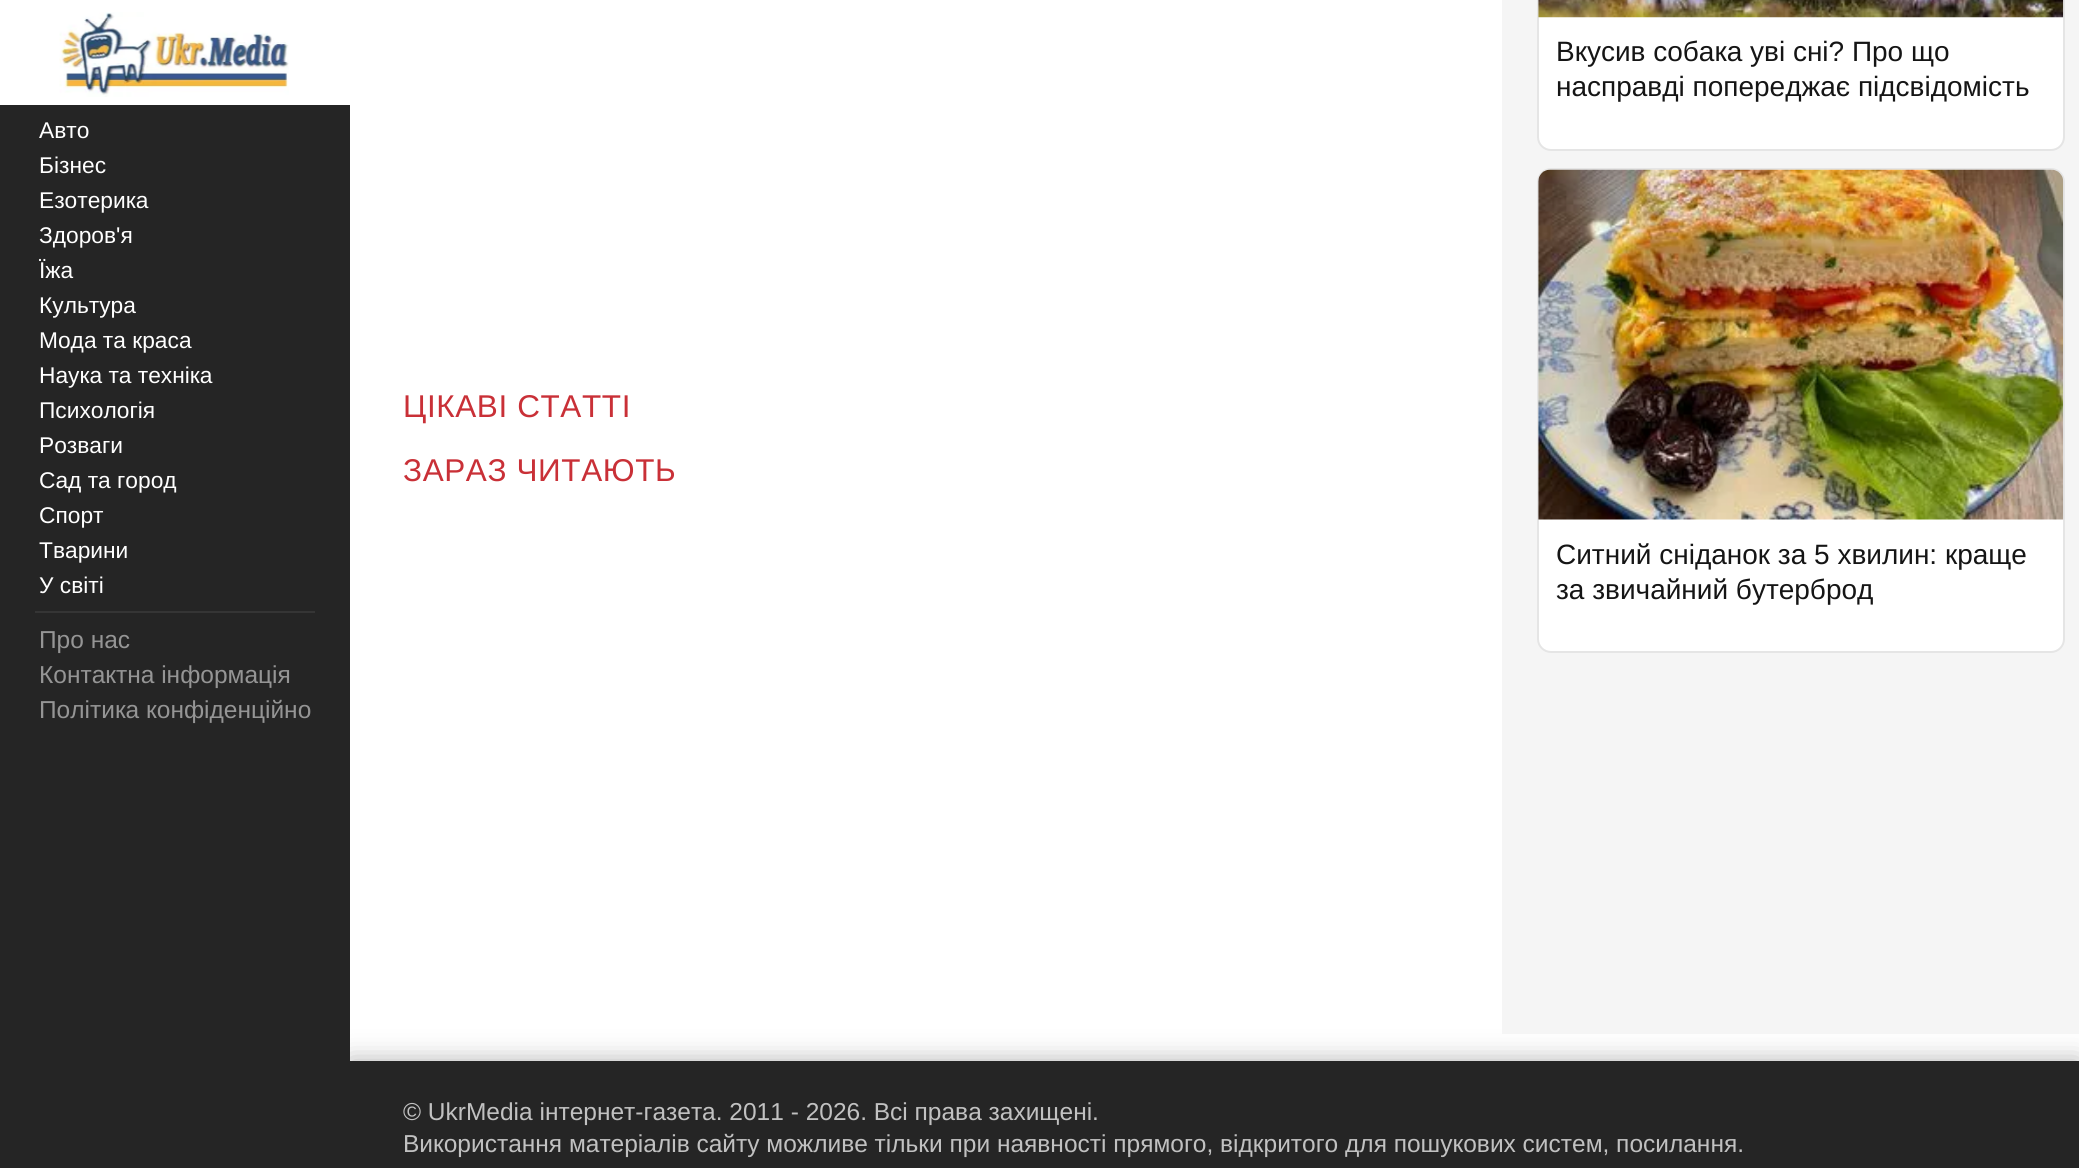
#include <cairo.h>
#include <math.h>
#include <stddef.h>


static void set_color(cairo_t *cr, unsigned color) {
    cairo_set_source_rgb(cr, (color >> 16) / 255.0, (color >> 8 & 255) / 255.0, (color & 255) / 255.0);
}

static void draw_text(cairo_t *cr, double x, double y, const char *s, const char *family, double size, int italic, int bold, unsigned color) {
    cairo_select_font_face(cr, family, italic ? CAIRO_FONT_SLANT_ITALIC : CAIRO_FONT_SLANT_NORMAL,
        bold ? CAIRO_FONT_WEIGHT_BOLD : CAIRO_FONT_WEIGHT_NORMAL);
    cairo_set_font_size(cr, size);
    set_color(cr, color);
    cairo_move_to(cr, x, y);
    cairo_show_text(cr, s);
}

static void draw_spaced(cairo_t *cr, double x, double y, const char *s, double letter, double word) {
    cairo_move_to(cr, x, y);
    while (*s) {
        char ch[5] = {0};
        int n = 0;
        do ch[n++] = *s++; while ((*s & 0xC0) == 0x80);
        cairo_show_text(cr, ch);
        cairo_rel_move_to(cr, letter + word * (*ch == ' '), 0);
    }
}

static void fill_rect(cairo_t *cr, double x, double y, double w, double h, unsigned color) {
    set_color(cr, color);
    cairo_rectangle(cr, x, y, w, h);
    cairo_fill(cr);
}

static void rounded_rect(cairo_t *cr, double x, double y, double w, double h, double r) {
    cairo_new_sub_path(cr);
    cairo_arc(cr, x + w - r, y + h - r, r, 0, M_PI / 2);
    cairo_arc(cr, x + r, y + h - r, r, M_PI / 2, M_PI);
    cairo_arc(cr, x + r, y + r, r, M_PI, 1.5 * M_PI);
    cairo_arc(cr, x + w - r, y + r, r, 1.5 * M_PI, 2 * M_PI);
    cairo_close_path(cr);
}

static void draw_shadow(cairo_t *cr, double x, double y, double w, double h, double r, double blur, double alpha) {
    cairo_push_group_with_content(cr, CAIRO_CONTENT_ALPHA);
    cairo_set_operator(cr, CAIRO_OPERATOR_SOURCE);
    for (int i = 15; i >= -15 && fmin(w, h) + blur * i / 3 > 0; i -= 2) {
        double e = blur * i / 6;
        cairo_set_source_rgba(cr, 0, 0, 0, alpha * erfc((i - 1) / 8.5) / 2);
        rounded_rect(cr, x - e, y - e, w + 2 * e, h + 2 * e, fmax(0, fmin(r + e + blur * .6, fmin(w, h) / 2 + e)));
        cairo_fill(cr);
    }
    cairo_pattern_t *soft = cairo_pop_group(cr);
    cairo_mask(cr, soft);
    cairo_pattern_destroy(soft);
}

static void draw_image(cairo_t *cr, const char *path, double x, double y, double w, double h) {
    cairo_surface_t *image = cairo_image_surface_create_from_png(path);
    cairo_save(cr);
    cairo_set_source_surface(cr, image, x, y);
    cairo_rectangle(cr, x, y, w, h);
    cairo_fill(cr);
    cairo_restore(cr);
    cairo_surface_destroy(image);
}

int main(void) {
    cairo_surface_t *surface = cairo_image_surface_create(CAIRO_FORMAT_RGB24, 2079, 1168);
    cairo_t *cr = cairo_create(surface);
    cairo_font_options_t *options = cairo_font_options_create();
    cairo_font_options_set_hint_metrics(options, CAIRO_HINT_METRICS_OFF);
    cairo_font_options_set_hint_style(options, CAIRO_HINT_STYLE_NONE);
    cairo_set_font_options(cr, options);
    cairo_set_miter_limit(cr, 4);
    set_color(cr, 0xFFFFFF);
    cairo_paint(cr);
    draw_image(cr, "assets/img1.png", 59, 12, 230, 85);
    cairo_select_font_face(cr, "Liberation Sans", CAIRO_FONT_SLANT_NORMAL, CAIRO_FONT_WEIGHT_NORMAL);
    cairo_set_font_size(cr, 31.5);
    set_color(cr, 0xC93037);
    draw_spaced(cr, 403, 417, "ЦІКАВІ СТАТТІ", 0.6, 0);
    draw_spaced(cr, 403, 481, "ЗАРАЗ ЧИТАЮТЬ", 0.6, 0);
    set_color(cr, 0xB1B1B1);
    draw_shadow(cr, 350, 1061, 1729, 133, 0, 13, 1);
    fill_rect(cr, 1502, 0, 577, 1034, 0xF5F5F5);
    set_color(cr, 0xFFFFFF);
    rounded_rect(cr, 1538, -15, 526, 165, 13);
    cairo_fill_preserve(cr);
    set_color(cr, 0xE5E5E5);
    cairo_stroke(cr);
    draw_image(cr, "assets/img2.png", 1538, 0, 526, 18);
    draw_text(cr, 1556, 61, "Вкусив собака уві сні? Про що", "Liberation Sans", 28, 0, 0, 0x151515);
    draw_text(cr, 1556, 96, "насправді попереджає підсвідомість", "Liberation Sans", 28, 0, 0, 0x151515);
    set_color(cr, 0xFFFFFF);
    rounded_rect(cr, 1538, 169, 526, 483, 13);
    cairo_fill_preserve(cr);
    set_color(cr, 0xE5E5E5);
    cairo_stroke(cr);
    draw_image(cr, "assets/img3.png", 1538, 169, 526, 351);
    draw_text(cr, 1556, 564, "Ситний сніданок за 5 хвилин: краще", "Liberation Sans", 28, 0, 0, 0x151515);
    draw_text(cr, 1556, 599, "за звичайний бутерброд", "Liberation Sans", 28, 0, 0, 0x151515);
    fill_rect(cr, 0, 105, 350, 1063, 0x252525);
    draw_text(cr, 39, 138, "Авто", "Liberation Sans", 22.75, 0, 0, 0xFFFFFF);
    draw_text(cr, 39, 173, "Бізнес", "Liberation Sans", 22.75, 0, 0, 0xFFFFFF);
    draw_text(cr, 39, 208, "Езотерика", "Liberation Sans", 22.75, 0, 0, 0xFFFFFF);
    draw_text(cr, 39, 243, "Здоров'я", "Liberation Sans", 22.75, 0, 0, 0xFFFFFF);
    draw_text(cr, 39, 278, "Їжа", "Liberation Sans", 22.75, 0, 0, 0xFFFFFF);
    draw_text(cr, 39, 313, "Культура", "Liberation Sans", 22.75, 0, 0, 0xFFFFFF);
    draw_text(cr, 39, 348, "Мода та краса", "Liberation Sans", 22.75, 0, 0, 0xFFFFFF);
    draw_text(cr, 39, 383, "Наука та техніка", "Liberation Sans", 22.75, 0, 0, 0xFFFFFF);
    draw_text(cr, 39, 418, "Психологія", "Liberation Sans", 22.75, 0, 0, 0xFFFFFF);
    draw_text(cr, 39, 453, "Розваги", "Liberation Sans", 22.75, 0, 0, 0xFFFFFF);
    draw_text(cr, 39, 488, "Сад та город", "Liberation Sans", 22.75, 0, 0, 0xFFFFFF);
    draw_text(cr, 39, 523, "Спорт", "Liberation Sans", 22.75, 0, 0, 0xFFFFFF);
    draw_text(cr, 39, 558, "Тварини", "Liberation Sans", 22.75, 0, 0, 0xFFFFFF);
    draw_text(cr, 39, 593, "У світі", "Liberation Sans", 22.75, 0, 0, 0xFFFFFF);
    fill_rect(cr, 35, 611, 280, 2, 0x353535);
    draw_text(cr, 39, 648, "Про нас", "Liberation Sans", 24.5, 0, 0, 0x959595);
    draw_text(cr, 39, 683, "Контактна інформація", "Liberation Sans", 24.5, 0, 0, 0x959595);
    draw_text(cr, 39, 718, "Політика конфіденційно", "Liberation Sans", 24.5, 0, 0, 0x959595);
    fill_rect(cr, 350, 1061, 1729, 107, 0x252525);
    draw_text(cr, 403, 1120, "© UkrMedia інтернет-газета. 2011 - 2026. Всі права захищені.", "Liberation Sans", 24.5, 0, 0, 0xC1C1C1);
    draw_text(cr, 403, 1152, "Використання матеріалів сайту можливе тільки при наявності прямого, відкритого для пошукових систем, посилання.", "Liberation Sans", 24.5, 0, 0, 0xC1C1C1);
    cairo_surface_write_to_png(surface, "output.png");
    cairo_font_options_destroy(options);
    cairo_destroy(cr);
    cairo_surface_destroy(surface);
    return 0;
}
